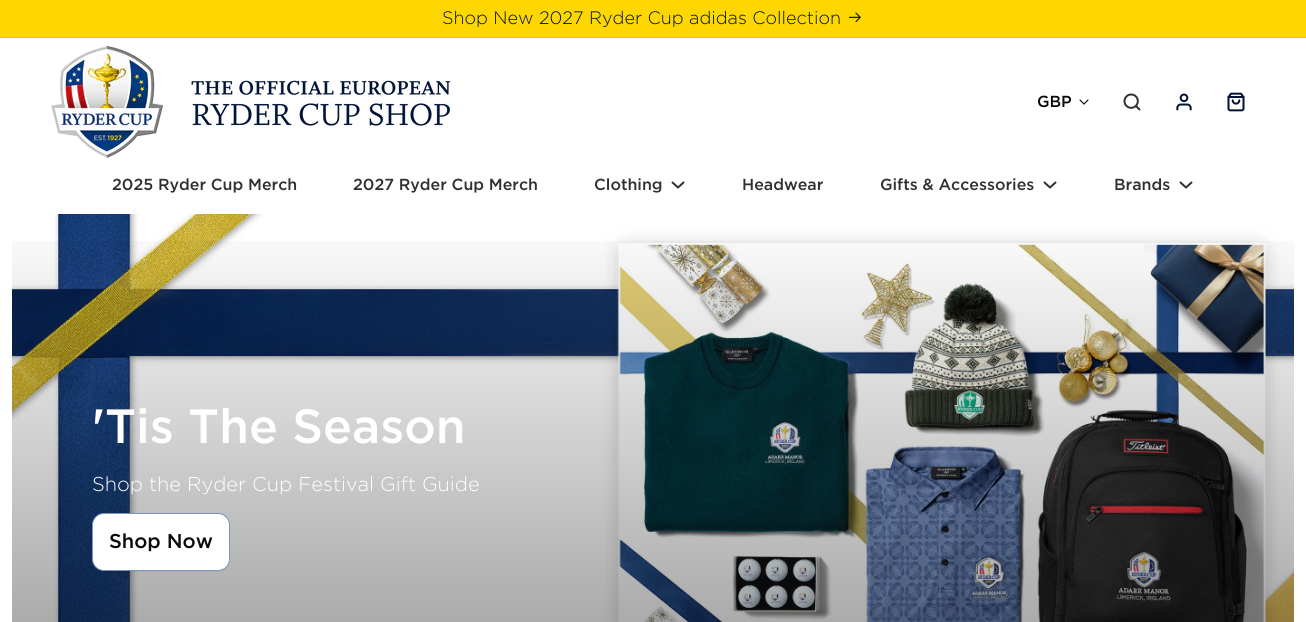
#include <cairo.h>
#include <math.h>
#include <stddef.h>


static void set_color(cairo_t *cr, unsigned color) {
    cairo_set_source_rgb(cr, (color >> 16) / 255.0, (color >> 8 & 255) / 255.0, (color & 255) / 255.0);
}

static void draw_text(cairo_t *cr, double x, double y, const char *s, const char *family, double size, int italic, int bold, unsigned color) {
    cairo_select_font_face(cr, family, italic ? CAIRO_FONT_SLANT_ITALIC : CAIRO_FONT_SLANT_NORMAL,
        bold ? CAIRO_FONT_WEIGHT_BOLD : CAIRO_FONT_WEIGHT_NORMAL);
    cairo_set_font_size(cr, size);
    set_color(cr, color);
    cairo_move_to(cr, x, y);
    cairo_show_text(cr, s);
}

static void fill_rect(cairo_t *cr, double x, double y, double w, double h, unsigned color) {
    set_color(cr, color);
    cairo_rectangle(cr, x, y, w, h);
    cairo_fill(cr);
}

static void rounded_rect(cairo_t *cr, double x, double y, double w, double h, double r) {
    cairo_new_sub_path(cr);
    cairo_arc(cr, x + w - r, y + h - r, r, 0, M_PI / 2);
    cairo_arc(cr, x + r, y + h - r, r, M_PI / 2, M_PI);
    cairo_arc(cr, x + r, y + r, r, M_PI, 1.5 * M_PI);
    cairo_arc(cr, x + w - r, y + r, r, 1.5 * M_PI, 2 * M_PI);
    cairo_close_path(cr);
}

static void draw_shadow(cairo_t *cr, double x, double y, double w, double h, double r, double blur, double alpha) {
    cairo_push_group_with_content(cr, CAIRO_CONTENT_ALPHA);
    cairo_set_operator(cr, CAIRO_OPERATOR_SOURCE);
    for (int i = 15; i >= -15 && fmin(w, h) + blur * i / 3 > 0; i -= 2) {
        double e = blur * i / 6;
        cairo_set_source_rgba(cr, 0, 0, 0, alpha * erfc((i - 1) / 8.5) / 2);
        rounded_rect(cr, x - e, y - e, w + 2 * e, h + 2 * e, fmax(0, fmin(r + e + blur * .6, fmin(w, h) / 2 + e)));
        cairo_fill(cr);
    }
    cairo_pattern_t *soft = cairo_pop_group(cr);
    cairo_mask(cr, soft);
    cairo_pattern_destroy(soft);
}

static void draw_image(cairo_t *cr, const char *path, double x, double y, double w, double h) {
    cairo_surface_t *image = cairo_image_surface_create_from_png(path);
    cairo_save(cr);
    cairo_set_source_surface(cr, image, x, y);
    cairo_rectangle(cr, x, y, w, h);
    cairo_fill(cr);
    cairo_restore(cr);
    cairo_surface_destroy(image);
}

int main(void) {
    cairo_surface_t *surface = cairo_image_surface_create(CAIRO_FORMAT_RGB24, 1306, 622);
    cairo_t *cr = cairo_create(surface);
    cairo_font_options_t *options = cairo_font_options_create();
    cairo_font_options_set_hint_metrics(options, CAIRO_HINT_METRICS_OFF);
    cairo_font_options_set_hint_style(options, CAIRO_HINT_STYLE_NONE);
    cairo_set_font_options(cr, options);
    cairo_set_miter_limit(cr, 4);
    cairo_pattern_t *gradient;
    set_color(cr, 0xFFFFFF);
    cairo_paint(cr);
    fill_rect(cr, 0, 0, 1306, 37, 0xFFD700);
    fill_rect(cr, 0, 37, 1306, 1, 0xEBC600);
    draw_text(cr, 442, 24, "Shop New 2027 Ryder Cup adidas Collection", "Gotham Light", 18, 0, 0, 0x001436);
    draw_image(cr, "assets/img1.png", 849, 12, 12, 11);
    draw_image(cr, "assets/img2.png", 51, 46, 400, 112);
    draw_text(cr, 1037, 107, "GBP", "Gotham Medium", 16, 0, 0, 0x0A0A0A);
    draw_image(cr, "assets/img3.png", 1079, 99, 10, 6);
    draw_image(cr, "assets/img4.png", 1123, 93, 18, 18);
    draw_image(cr, "assets/img5.png", 1176, 93, 16, 18);
    draw_image(cr, "assets/img6.png", 1227, 92, 18, 20);
    draw_text(cr, 112, 190, "2025 Ryder Cup Merch", "Gotham Medium", 16, 0, 0, 0x303030);
    draw_text(cr, 353, 190, "2027 Ryder Cup Merch", "Gotham Medium", 16, 0, 0, 0x303030);
    draw_text(cr, 594, 190, "Clothing", "Gotham Medium", 16, 0, 0, 0x303030);
    cairo_new_path(cr);
    cairo_move_to(cr, 672.5, 182.5);
    cairo_line_to(cr, 678, 187.5);
    cairo_line_to(cr, 683.5, 182.5);
    cairo_set_line_cap(cr, CAIRO_LINE_CAP_ROUND);
    cairo_set_line_join(cr, CAIRO_LINE_JOIN_ROUND);
    cairo_stroke(cr);
    draw_text(cr, 742, 190, "Headwear", "Gotham Medium", 16, 0, 0, 0x303030);
    draw_text(cr, 880, 190, "Gifts & Accessories", "Gotham Medium", 16, 0, 0, 0x303030);
    cairo_new_path(cr);
    cairo_move_to(cr, 1044.5, 182.5);
    cairo_line_to(cr, 1050, 187.5);
    cairo_line_to(cr, 1055.5, 182.5);
    cairo_stroke(cr);
    draw_text(cr, 1114, 190, "Brands", "Gotham Medium", 16, 0, 0, 0x303030);
    cairo_new_path(cr);
    cairo_move_to(cr, 1180.5, 182.5);
    cairo_line_to(cr, 1186, 187.5);
    cairo_line_to(cr, 1191.5, 182.5);
    cairo_stroke(cr);
    draw_image(cr, "assets/img7.png", 12, 214, 1282, 408);
    gradient = cairo_pattern_create_linear(653, 214, 653, 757);
    cairo_pattern_add_color_stop_rgba(gradient, 0, 0, 0, 0, 0);
    cairo_pattern_add_color_stop_rgba(gradient, 1, 0, 0, 0, 0.44);
    cairo_set_source(cr, gradient);
    cairo_pattern_destroy(gradient);
    cairo_rectangle(cr, 12, 241, 1282, 381);
    cairo_fill(cr);
    draw_text(cr, 92, 443, "'Tis The Season", "Gotham Medium", 48, 0, 0, 0xFFFFFF);
    draw_text(cr, 92, 491, "Shop the Ryder Cup Festival Gift Guide", "Gotham Light", 20, 0, 0, 0xFFFFFF);
    set_color(cr, 0x000000);
    draw_shadow(cr, 94, 517, 134, 54, 10, 2, 0.08);
    set_color(cr, 0xFFFFFF);
    rounded_rect(cr, 92.5, 513.5, 137, 57, 11.5);
    cairo_fill_preserve(cr);
    set_color(cr, 0x7997BA);
    cairo_set_line_width(cr, 1);
    cairo_set_line_cap(cr, CAIRO_LINE_CAP_BUTT);
    cairo_set_line_join(cr, CAIRO_LINE_JOIN_MITER);
    cairo_stroke(cr);
    draw_text(cr, 109, 548, "Shop Now", "Gotham Medium", 20, 0, 0, 0x0A0A0A);
    cairo_surface_write_to_png(surface, "output.png");
    cairo_font_options_destroy(options);
    cairo_destroy(cr);
    cairo_surface_destroy(surface);
    return 0;
}
